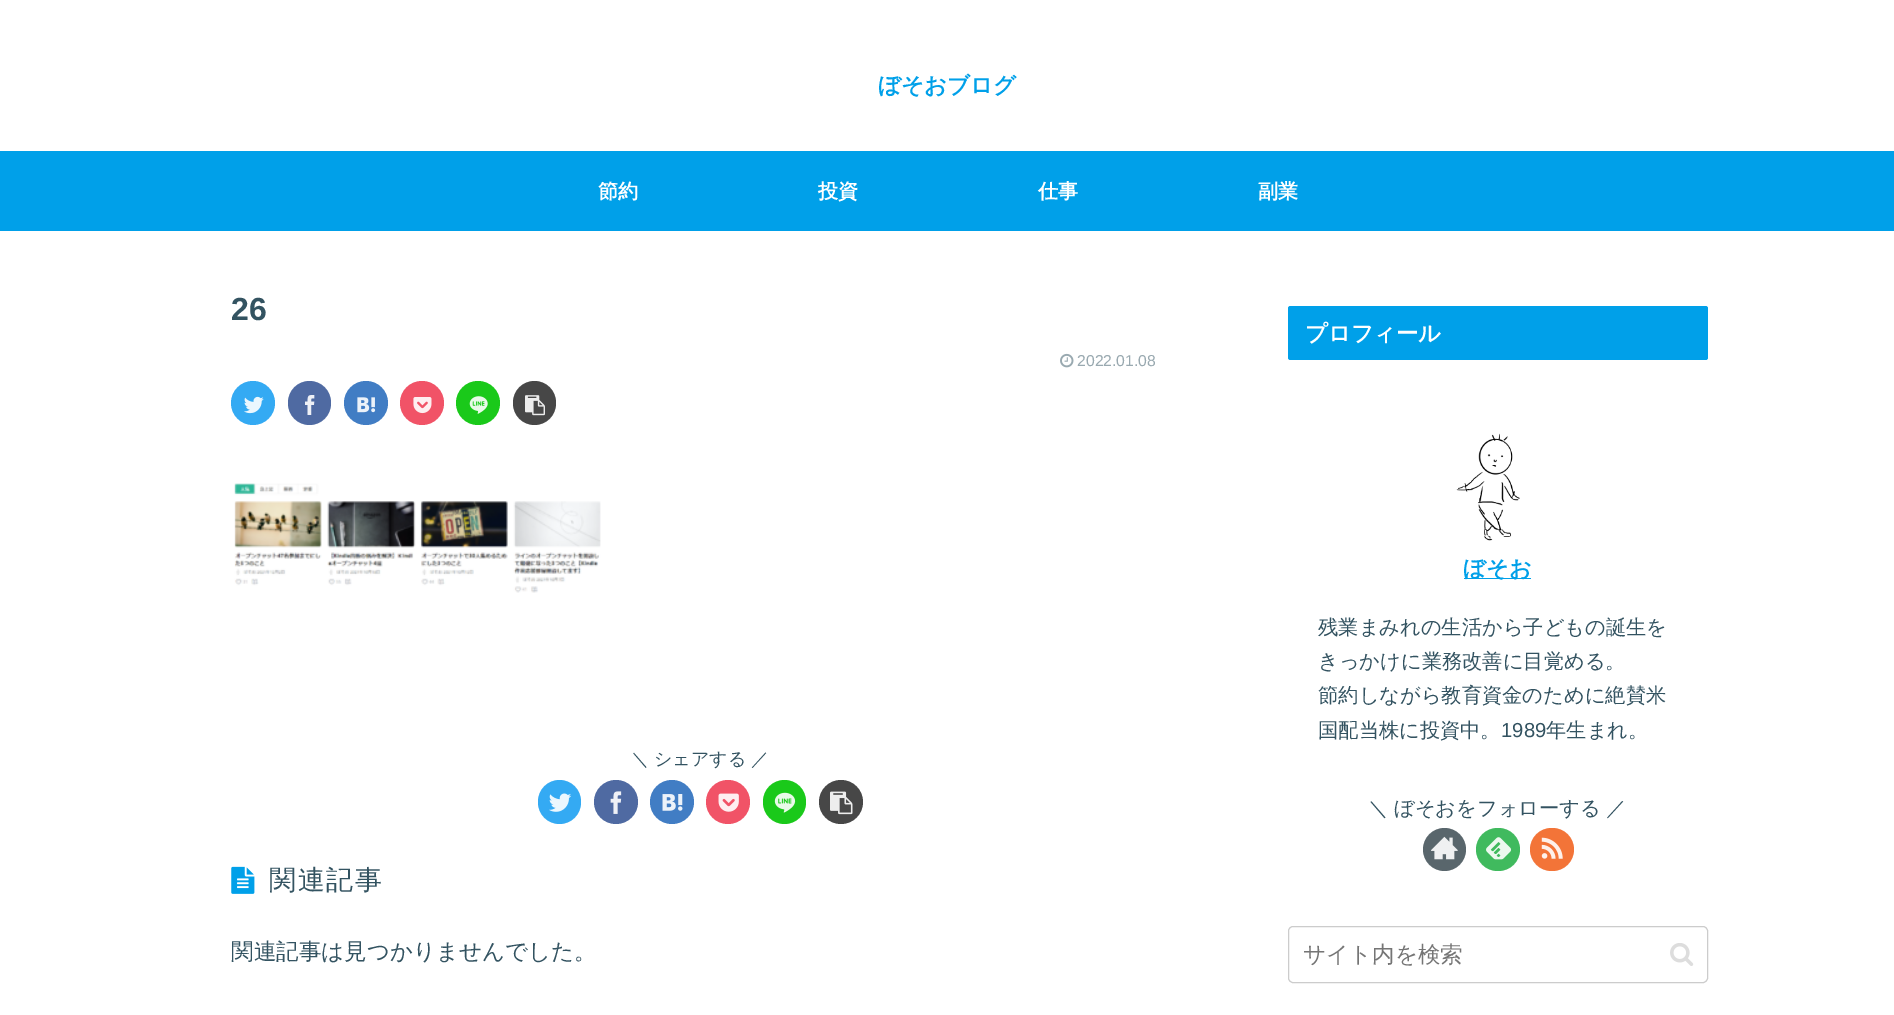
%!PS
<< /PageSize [1894 1015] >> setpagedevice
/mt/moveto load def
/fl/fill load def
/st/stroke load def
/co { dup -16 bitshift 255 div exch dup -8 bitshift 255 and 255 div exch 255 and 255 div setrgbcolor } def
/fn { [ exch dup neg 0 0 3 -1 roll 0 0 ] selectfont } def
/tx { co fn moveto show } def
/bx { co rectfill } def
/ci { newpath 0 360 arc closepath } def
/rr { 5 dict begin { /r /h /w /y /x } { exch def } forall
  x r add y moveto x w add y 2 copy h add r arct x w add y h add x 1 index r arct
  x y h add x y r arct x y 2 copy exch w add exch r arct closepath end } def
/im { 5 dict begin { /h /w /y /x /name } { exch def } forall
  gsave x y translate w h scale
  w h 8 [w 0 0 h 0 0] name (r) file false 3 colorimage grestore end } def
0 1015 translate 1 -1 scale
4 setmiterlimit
0 0 1894 1015 16#FFFFFF bx
0 151 1894 80 16#00A0E9 bx
(media/1.raw) 1060 353 14 15 im
16#34AAF3 co
253 403 22 ci fl
(media/2.raw) 244 396 20 18 im
16#4F6AA2 co
288 381 43 44 21.5 rr fl
(media/3.raw) 305 395 10 20 im
16#417DC4 co
366 403 22 ci fl
(media/4.raw) 357 397 19 16 im
16#F15367 co
422 403 22 ci fl
(media/5.raw) 413 397 19 17 im
16#1AC91A co
478 403 22 ci fl
(media/6.raw) 469 396 19 18 im
16#474747 co
513 381 43 44 21.5 rr fl
(media/7.raw) 525 395 20 21 im
(media/8.raw) 234 483 367 110 im
16#34AAF3 co
538 780 43 44 21.5 rr fl
(media/9.raw) 549 793 23 19 im
16#4F6AA2 co
616 802 22 ci fl
(media/10.raw) 610 791 12 23 im
16#417DC4 co
672 802 22 ci fl
(media/11.raw) 662 794 21 17 im
16#F15367 co
728 802 22 ci fl
(media/12.raw) 718 793 21 19 im
16#1AC91A co
763 780 43 44 21.5 rr fl
(media/13.raw) 774 792 22 21 im
16#474747 co
841 802 22 ci fl
(media/14.raw) 830 791 23 24 im
(media/15.raw) 231 866 24 28 im
16#00A0E9 co
1288 306 420 54 2.5 rr fl
(media/16.raw) 1456 433 64 108 im
1464 578 67 1 16#00A0E9 bx
16#59666C co
1444.5 849.5 21.5 ci fl
(media/17.raw) 1431 836 27 24 im
16#40BA5E co
1476 828 44 43 21.5 rr fl
(media/18.raw) 1486 837 25 23 im
16#F37438 co
1530 828 44 43 21.5 rr fl
(media/19.raw) 1541 837 22 22 im
16#CCCCCC co
1288.5 926.5 419 56 4.5 rr st
(media/20.raw) 1670 943 24 23 im
(ぼそおブログ) 878 93 /WenQuanYiZenHei-Bold 22.5 16#00A0E9 tx
(節約) 598 198 /WenQuanYiZenHei-Bold 20 16#FFFFFF tx
(投資) 818 198 /WenQuanYiZenHei-Bold 20 16#FFFFFF tx
(仕事) 1038 198 /WenQuanYiZenHei-Bold 20 16#FFFFFF tx
(副業) 1258 198 /WenQuanYiZenHei-Bold 20 16#FFFFFF tx
(26) 231 320 /LiberationSans-Bold 32 16#335361 tx
(2022.01.08) 1077 366 /LiberationSans-Regular 15.75 16#99A9B0 tx
(＼) 631 765 /WenQuanYiZenHei-Medium 18 16#335361 tx
(シェアする) 654 765 /WenQuanYiZenHei-Medium 18 16#335361 tx
(／) 751 765 /WenQuanYiZenHei-Medium 18 16#335361 tx
/WenQuanYiZenHei-Medium 27 fn
269 889 mt 1.5 0 (関連記事) ashow
(関連記事は見つかりませんでした。) 231 959 /WenQuanYiZenHei-Medium 22.5 16#335361 tx
(プロフィール) 1305 341 /WenQuanYiZenHei-Bold 22.25 16#FFFFFF tx
(ぼそお) 1463 576 /WenQuanYiZenHei-Bold 22.25 16#00A0E9 tx
(残業まみれの生活から子どもの誕生を) 1318 634 /WenQuanYiZenHei-Medium 20.25 16#335361 tx
(きっかけに業務改善に目覚める。) 1318 668 /WenQuanYiZenHei-Medium 20.25 16#335361 tx
(節約しながら教育資金のために絶賛米) 1318 702 /WenQuanYiZenHei-Medium 20.25 16#335361 tx
(国配当株に投資中。) 1318 737 /WenQuanYiZenHei-Medium 20.25 16#335361 tx
(1989) 1501 737 /LiberationSans-Regular 20.25 16#335361 tx
(年生まれ。) 1546 737 /WenQuanYiZenHei-Medium 20.25 16#335361 tx
(＼) 1368 815 /WenQuanYiZenHei-Medium 20.25 16#335361 tx
(ぼそおをフォローする) 1394 815 /WenQuanYiZenHei-Medium 20.25 16#335361 tx
(／) 1606 815 /WenQuanYiZenHei-Medium 20.25 16#335361 tx
(サイト内を検索) 1303 962 /WenQuanYiZenHei-Medium 22.5 16#757575 tx
showpage
